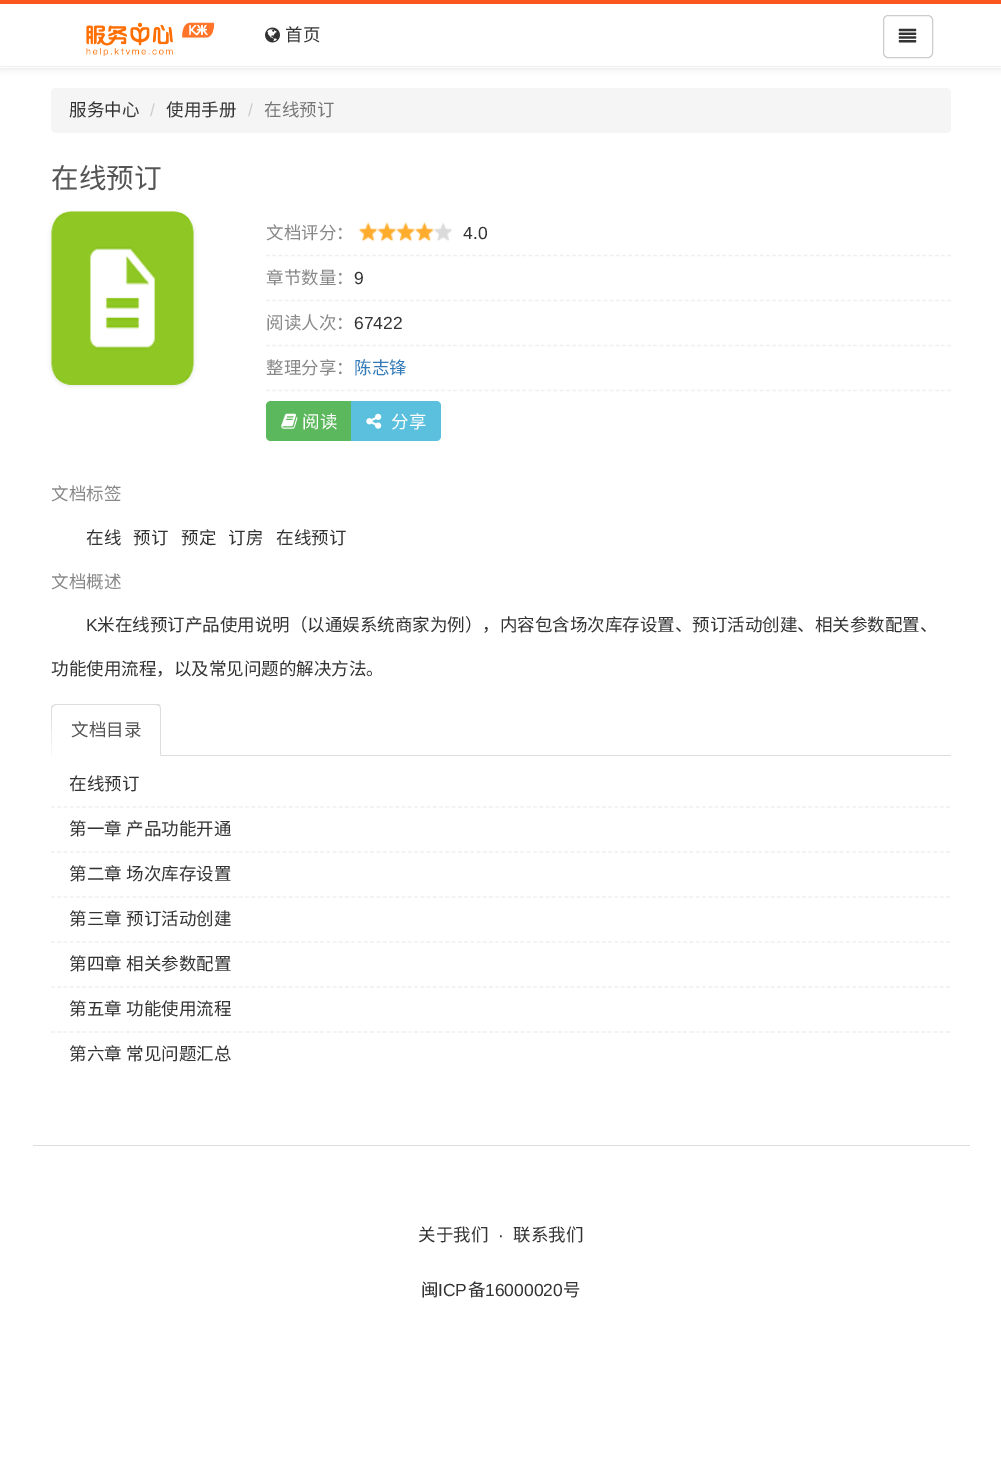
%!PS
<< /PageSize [1001 1466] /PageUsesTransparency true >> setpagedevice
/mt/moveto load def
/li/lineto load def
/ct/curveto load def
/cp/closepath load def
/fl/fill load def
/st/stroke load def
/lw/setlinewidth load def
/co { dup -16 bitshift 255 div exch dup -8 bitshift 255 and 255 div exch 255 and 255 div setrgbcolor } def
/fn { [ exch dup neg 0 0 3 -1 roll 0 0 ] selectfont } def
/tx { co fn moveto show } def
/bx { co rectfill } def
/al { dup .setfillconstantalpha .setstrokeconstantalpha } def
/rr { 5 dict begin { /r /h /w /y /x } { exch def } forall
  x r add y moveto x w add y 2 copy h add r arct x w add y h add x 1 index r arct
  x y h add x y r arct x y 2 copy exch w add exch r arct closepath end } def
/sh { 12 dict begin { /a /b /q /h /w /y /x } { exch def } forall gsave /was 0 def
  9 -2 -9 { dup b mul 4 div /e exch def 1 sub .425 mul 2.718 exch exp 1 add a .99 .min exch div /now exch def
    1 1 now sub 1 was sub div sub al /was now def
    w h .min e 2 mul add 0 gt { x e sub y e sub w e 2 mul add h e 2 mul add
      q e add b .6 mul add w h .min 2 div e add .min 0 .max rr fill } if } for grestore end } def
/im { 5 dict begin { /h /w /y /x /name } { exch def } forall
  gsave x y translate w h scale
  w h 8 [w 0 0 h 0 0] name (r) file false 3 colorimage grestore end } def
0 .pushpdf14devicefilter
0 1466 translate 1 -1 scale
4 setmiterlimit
0 0 1001 1466 16#FFFFFF bx
16#000000 co
0 1 1001 68 0 3 .1 sh
0 4 1001 64 16#FFFFFF bx
0 0 1001 4 16#FC561F bx
0 66 1001 1 16#EFEFEF bx
(media/1.raw) 86 22 129 35 im
(media/2.raw) 265 27 15 16 im
16#CCCCCC co
883.5 15.5 49 42 4.5 rr st
(media/3.raw) 898 28 19 15 im
16#F5F5F5 co
51 88 900 45 5 rr fl
16#000000 co
51 213 143 173 20 2 .1 sh
(media/4.raw) 51 211 143 174 im
16#EFEFEF co
1.2 lw
[3.75 2.5] 0 setdash
266 255.5 mt 951 255.5 li st
(media/5.raw) 358 222 94 20 im
266 300.5 mt 951 300.5 li st
266 345.5 mt 951 345.5 li st
266 390.5 mt 951 390.5 li st
16#5CB85C co
271 401 mt 353 401 li 353 441 li 271 441 li 268 441 266 439 266 436 ct 266 406 li 266 403 268 401 271 401 ct cp fl
(media/6.raw) 281 413 17 16 im
16#5BC0DE co
351 401 mt 436 401 li 439 401 441 403 441 406 ct 441 436 li 441 439 439 441 436 441 ct 351 441 li cp fl
(media/7.raw) 366 413 16 16 im
161 755 790 1 16#DDDDDD bx
56 704 mt 53 705 li 54 706 li 56 705 li 156 705 li 159 706 li 160 705 li 159 704 158 704 156 704 ct cp fl
161 756 mt 161 709 li 161 708 160 706 160 705 ct 159 706 li 160 707 160 708 160 709 ct 160 755 li cp fl
51 707 mt 53 705 li 54 706 li 52 708 li 52 755 li 52 756 li cp fl
16#EFEFEF co
[3.75 2.51] 0 setdash
51 807 mt 951 807 li st
51 852 mt 951 852 li st
51 897 mt 951 897 li st
51 942 mt 951 942 li st
51 987 mt 951 987 li st
51 1032 mt 951 1032 li st
33 1145 937 1 16#DDDDDD bx
(首页) 285 41 /NotoSansCJKSC-Regular 17.5 16#333333 tx
(服务中心) 69 116 /NotoSansCJKSC-Regular 17.5 16#333333 tx
(/) 150 116 /LiberationSans-Regular 17.5 16#CCCCCC tx
(使用手册) 166 116 /NotoSansCJKSC-Regular 17.5 16#333333 tx
(/) 248 116 /LiberationSans-Regular 17.5 16#CCCCCC tx
(在线预订) 264 116 /NotoSansCJKSC-Regular 17.5 16#777777 tx
(在线预订) 51 188 /NotoSansCJKSC-Regular 27.5 16#555555 tx
(文档评分：) 266 239 /NotoSansCJKSC-Regular 17.5 16#888888 tx
(4.0) 463 239 /LiberationSans-Regular 17.5 16#333333 tx
(章节数量：) 266 284 /NotoSansCJKSC-Regular 17.5 16#888888 tx
(9) 354 284 /LiberationSans-Regular 17.5 16#333333 tx
(阅读人次：) 266 329 /NotoSansCJKSC-Regular 17.5 16#888888 tx
(67422) 354 329 /LiberationSans-Regular 17.5 16#333333 tx
(整理分享：) 266 374 /NotoSansCJKSC-Regular 17.5 16#888888 tx
(陈志锋) 354 374 /NotoSansCJKSC-Regular 17.5 16#337AB7 tx
(阅读) 302 428 /NotoSansCJKSC-Regular 17.5 16#FFFFFF tx
(分享) 391 428 /NotoSansCJKSC-Regular 17.5 16#FFFFFF tx
(文档标签) 51 500 /NotoSansCJKSC-Regular 17.5 16#888888 tx
(在线) 86 544 /NotoSansCJKSC-Regular 17.5 16#333333 tx
(预订) 133 544 /NotoSansCJKSC-Regular 17.5 16#333333 tx
(预定) 181 544 /NotoSansCJKSC-Regular 17.5 16#333333 tx
(订房) 228 544 /NotoSansCJKSC-Regular 17.5 16#333333 tx
(在线预订) 276 544 /NotoSansCJKSC-Regular 17.5 16#333333 tx
(文档概述) 51 588 /NotoSansCJKSC-Regular 17.5 16#888888 tx
(K) 86 631 /LiberationSans-Regular 17.5 16#333333 tx
(米在线预订产品使用说明（以通娱系统商家为例），内容包含场次库存设置、预订活动创建、相关参数配置、) 97 631 /NotoSansCJKSC-Regular 17.5 16#333333 tx
(功能使用流程，以及常见问题的解决方法。) 51 675 /NotoSansCJKSC-Regular 17.5 16#333333 tx
(文档目录) 71 736 /NotoSansCJKSC-Regular 17.5 16#555555 tx
(在线预订) 69 790 /NotoSansCJKSC-Regular 17.5 16#333333 tx
69 835 mt 1 0 32 (第一章 产品功能开通) widthshow
69 880 mt 1 0 32 (第二章 场次库存设置) widthshow
69 925 mt 1 0 32 (第三章 预订活动创建) widthshow
69 970 mt 1 0 32 (第四章 相关参数配置) widthshow
69 1015 mt 1 0 32 (第五章 功能使用流程) widthshow
69 1060 mt 1 0 32 (第六章 常见问题汇总) widthshow
(关于我们) 418 1241 /NotoSansCJKSC-Regular 17.5 16#333333 tx
(·) 498 1241 /LiberationSans-Regular 17.5 16#333333 tx
(联系我们) 513 1241 /NotoSansCJKSC-Regular 17.5 16#333333 tx
(闽) 421 1296 /NotoSansCJKSC-Regular 17.5 16#333333 tx
(ICP) 438 1296 /LiberationSans-Regular 17.5 16#333333 tx
(备) 468 1296 /NotoSansCJKSC-Regular 17.5 16#333333 tx
(16000020) 485 1296 /LiberationSans-Regular 17.5 16#333333 tx
(号) 563 1296 /NotoSansCJKSC-Regular 17.5 16#333333 tx
.poppdf14devicefilter showpage
